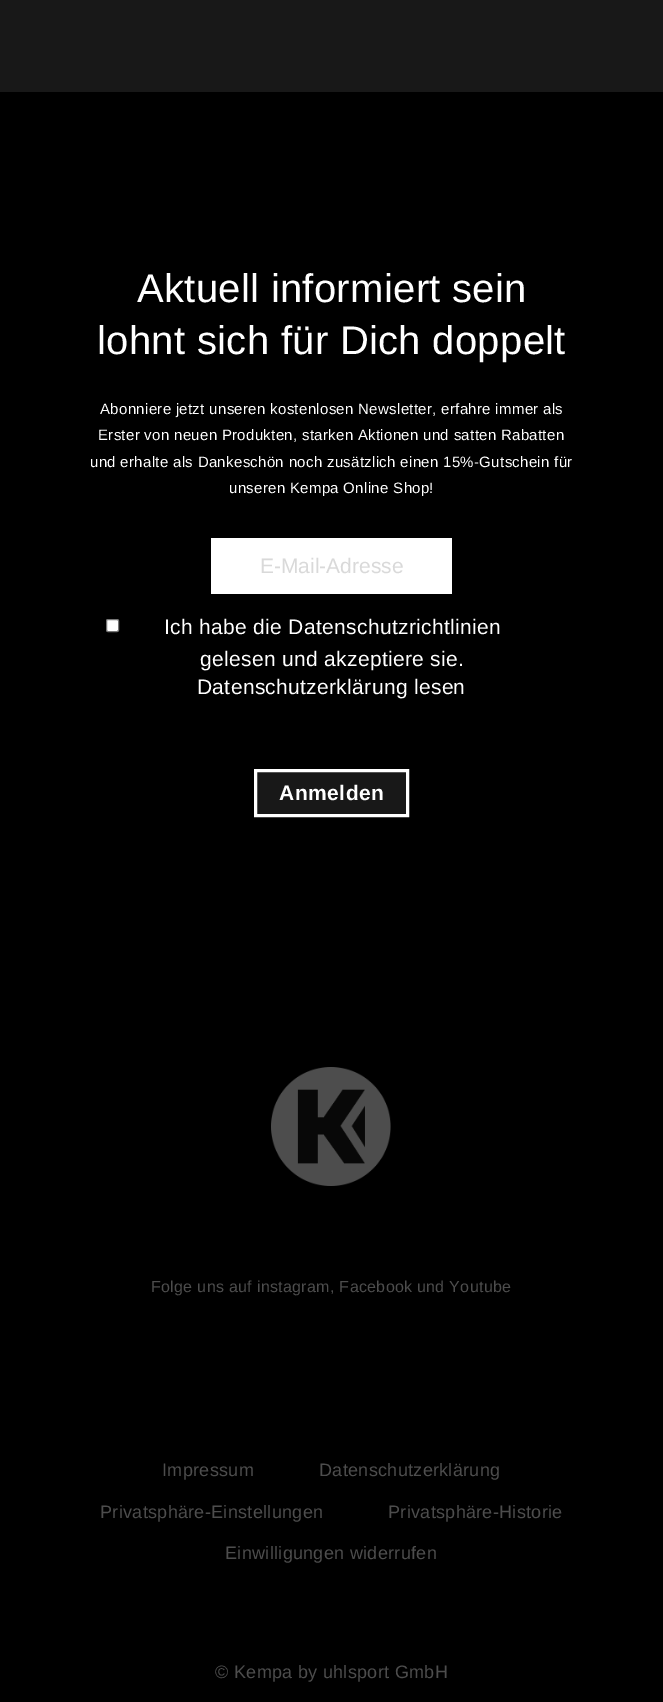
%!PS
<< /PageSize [663 1702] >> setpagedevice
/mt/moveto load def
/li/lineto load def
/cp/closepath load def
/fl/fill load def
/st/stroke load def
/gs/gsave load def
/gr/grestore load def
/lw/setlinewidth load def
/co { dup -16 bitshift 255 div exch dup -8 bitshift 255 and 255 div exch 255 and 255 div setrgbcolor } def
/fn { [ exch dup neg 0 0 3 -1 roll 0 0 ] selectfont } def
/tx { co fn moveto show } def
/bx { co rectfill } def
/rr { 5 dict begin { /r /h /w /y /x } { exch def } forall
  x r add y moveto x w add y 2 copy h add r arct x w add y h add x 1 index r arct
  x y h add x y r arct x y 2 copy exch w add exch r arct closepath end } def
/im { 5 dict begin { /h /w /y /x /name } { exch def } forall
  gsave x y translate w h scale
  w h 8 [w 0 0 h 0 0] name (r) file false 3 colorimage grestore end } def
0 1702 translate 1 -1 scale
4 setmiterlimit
0 0 663 1702 16#000000 bx
0 0 663 92 16#181818 bx
211 538 241 56 16#FFFFFF bx
106.5 619.5 12 12 1.5 rr gs fl gr
16#767676 co
st
16#181818 co
255.5 770.5 mt 407.5 770.5 li 407.5 815.5 li 255.5 815.5 li cp gs fl gr
16#FFFFFF co
3 lw
st
(media/1.raw) 271 1067 120 119 im
/LiberationSans-Regular 40 fn
137 302 mt .32 0 (Aktuell informiert sein) ashow
97 354 mt .32 0 (lohnt sich für Dich doppelt) ashow
/LiberationSans-Regular 15 fn
100 414 mt .32 0 (Abonniere jetzt unseren kostenlosen Newsletter, erfahre immer als) ashow
98 440 mt .32 0 (Erster von neuen Produkten, starken Aktionen und satten Rabatten) ashow
90 467 mt .32 0 (und erhalte als Dankeschön noch zusätzlich einen 15%-Gutschein für) ashow
229 493 mt .32 0 (unseren Kempa Online Shop!) ashow
(E-Mail-Adresse) 260 573 /LiberationSans-Regular 21 16#D9D9D9 tx
16#FFFFFF co
164 634 mt .32 0 (Ich habe die Datenschutzrichtlinien) ashow
200 666 mt .32 0 (gelesen und akzeptiere sie.) ashow
197 694 mt .32 0 (Datenschutzerklärung lesen) ashow
/LiberationSans-Bold 21 fn
279 800 mt .5 0 (Anmelden) ashow
/LiberationSans-Regular 16 fn
16#4D4D4D co
151 1292 mt .32 0 (Folge uns auf instagram, Facebook und Youtube) ashow
/LiberationSans-Regular 18 fn
162 1476 mt .32 0 (Impressum) ashow
319 1476 mt .32 0 (Datenschutzerklärung) ashow
100 1518 mt .32 0 (Privatsphäre-Einstellungen) ashow
388 1518 mt .32 0 (Privatsphäre-Historie) ashow
225 1559 mt .32 0 (Einwilligungen widerrufen) ashow
215 1678 mt .32 0 (© Kempa by uhlsport GmbH) ashow
showpage
